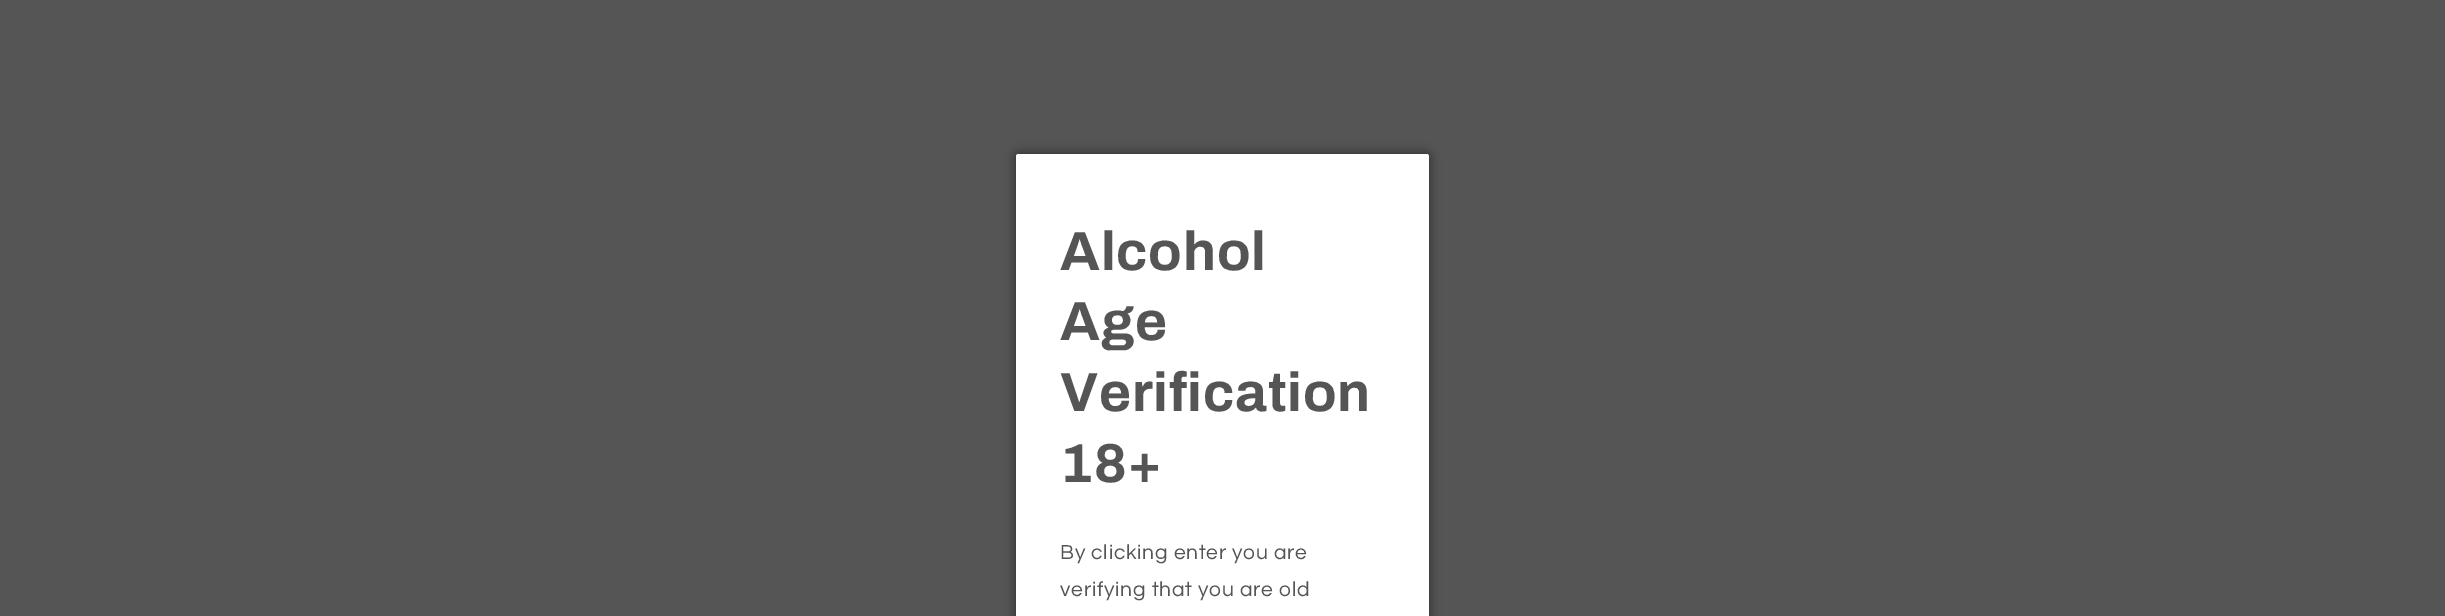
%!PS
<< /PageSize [2445 616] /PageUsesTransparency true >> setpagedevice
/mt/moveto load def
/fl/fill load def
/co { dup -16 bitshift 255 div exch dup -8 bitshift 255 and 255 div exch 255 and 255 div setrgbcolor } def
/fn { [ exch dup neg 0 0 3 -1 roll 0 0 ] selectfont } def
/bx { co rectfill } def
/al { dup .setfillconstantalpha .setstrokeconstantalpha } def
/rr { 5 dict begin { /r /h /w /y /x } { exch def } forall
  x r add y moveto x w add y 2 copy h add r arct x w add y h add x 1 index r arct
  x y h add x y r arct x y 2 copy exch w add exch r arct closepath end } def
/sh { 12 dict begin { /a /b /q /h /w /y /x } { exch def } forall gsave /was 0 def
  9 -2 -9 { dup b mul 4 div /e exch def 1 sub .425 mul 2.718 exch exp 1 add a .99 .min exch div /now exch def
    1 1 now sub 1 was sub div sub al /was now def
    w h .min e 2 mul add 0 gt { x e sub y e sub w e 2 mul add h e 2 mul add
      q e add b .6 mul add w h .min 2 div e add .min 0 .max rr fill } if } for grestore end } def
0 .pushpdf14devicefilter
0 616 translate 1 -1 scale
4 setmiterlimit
0 0 2445 616 16#555555 bx
16#000000 co
1016 154 413 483 2.5 6 .5 sh
16#FFFFFF co
1016 154 413 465 2.5 rr fl
/Archivo-Bold 55 fn
16#555555 co
1060 270 mt .75 0 (Alcohol) ashow
1060 340 mt .75 0 (Age) ashow
1060 411 mt .75 0 (Verification) ashow
1060 482 mt .75 0 (18+) ashow
/Questrial-Regular 21 fn
1060 559 mt .8 0 (By clicking enter you are) ashow
1060 596 mt .8 0 (verifying that you are old) ashow
.poppdf14devicefilter showpage
